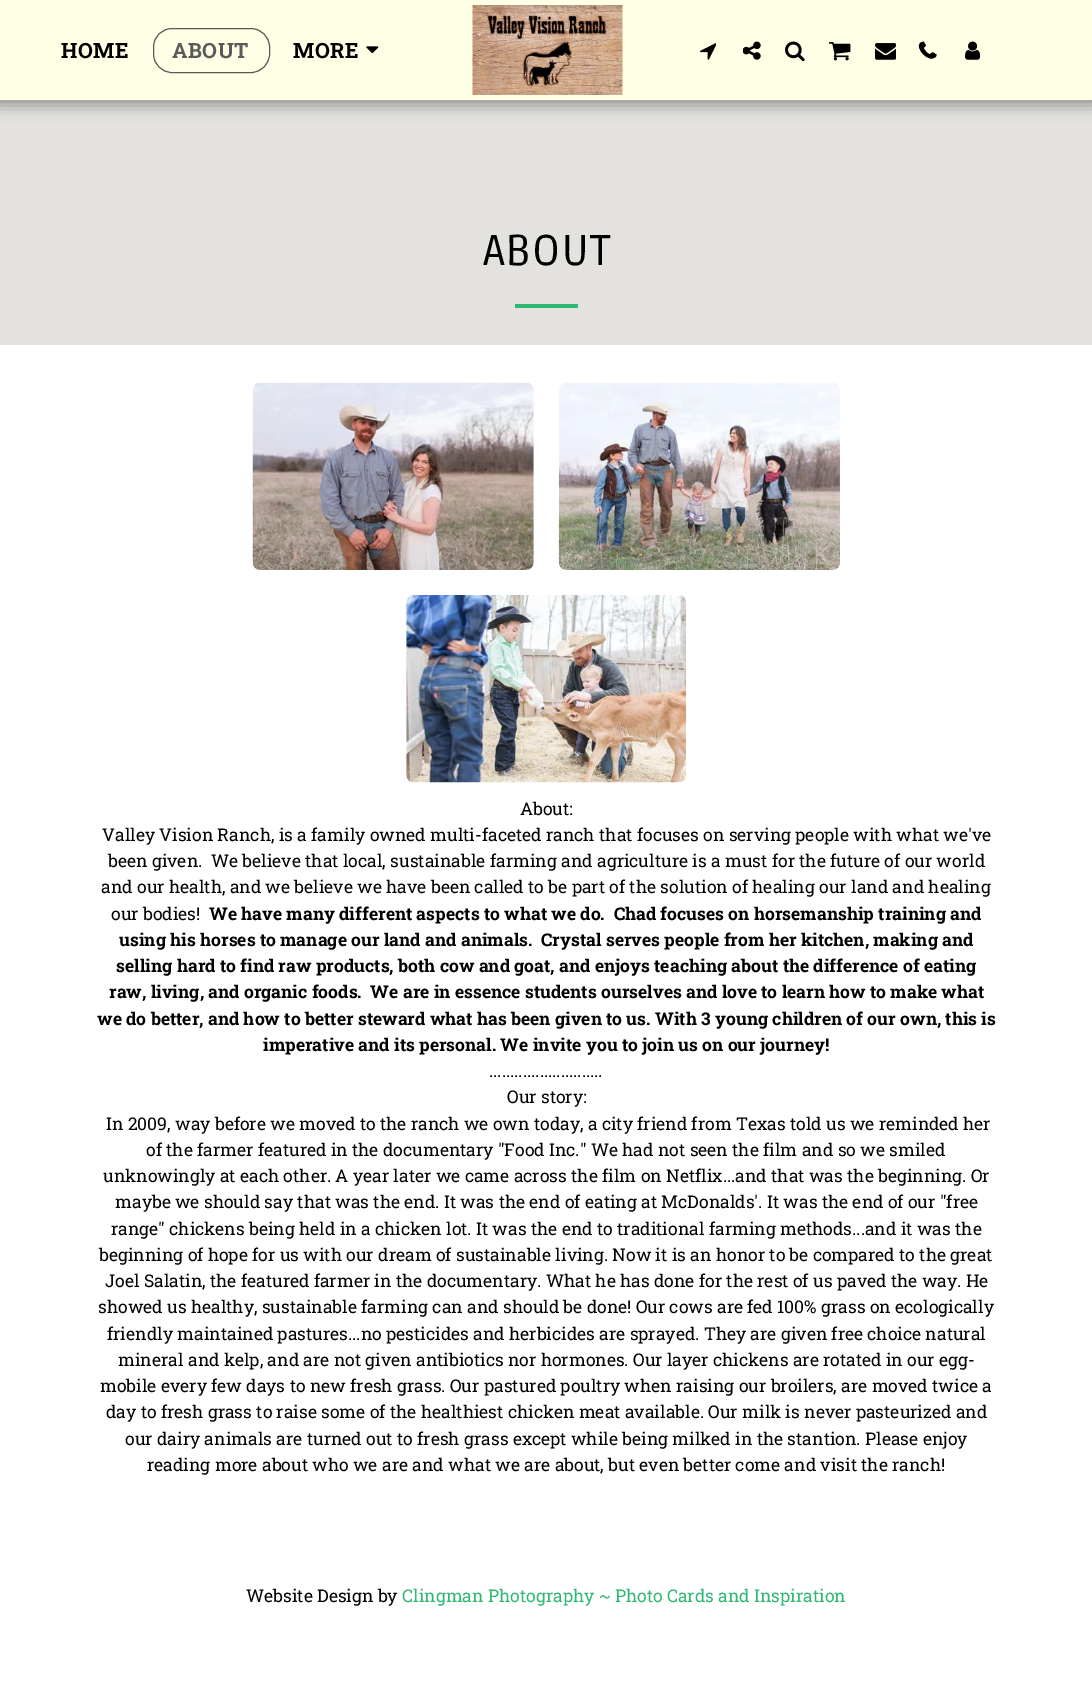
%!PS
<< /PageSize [1092 1694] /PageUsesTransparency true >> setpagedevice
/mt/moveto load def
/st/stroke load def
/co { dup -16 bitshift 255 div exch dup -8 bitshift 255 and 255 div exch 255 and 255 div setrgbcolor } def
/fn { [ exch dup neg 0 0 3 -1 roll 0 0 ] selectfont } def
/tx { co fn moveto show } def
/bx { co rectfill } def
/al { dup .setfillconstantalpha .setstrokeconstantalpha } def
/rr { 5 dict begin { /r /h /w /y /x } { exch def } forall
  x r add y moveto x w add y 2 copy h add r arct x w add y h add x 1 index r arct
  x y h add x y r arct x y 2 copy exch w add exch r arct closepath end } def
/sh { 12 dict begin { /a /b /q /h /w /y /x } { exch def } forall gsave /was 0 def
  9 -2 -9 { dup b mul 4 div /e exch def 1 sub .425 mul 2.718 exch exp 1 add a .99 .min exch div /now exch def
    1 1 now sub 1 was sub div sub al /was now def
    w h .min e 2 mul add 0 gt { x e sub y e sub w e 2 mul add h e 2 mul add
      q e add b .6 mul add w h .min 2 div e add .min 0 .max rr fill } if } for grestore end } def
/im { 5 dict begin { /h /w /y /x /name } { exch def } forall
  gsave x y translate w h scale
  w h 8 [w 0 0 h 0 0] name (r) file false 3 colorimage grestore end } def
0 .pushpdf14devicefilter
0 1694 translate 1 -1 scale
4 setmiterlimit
0 0 1092 1694 16#FFFFFF bx
0 100 1092 245 16#E3E2DE bx
16#000000 co
-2 0 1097 105 0 7.5 .35 sh
0 0 1092 100 16#FEFFE4 bx
16#5A5A5A co
153.5 28.5 116 44 18.5 rr st
(media/1.raw) 366 46 13 8 im
(media/2.raw) 472 5 151 90 im
(media/3.raw) 700 43 16 17 im
(media/4.raw) 743 41 18 19 im
(media/5.raw) 785 41 20 20 im
(media/6.raw) 829 42 22 19 im
(media/7.raw) 875 43 21 17 im
(media/8.raw) 920 41 17 18 im
(media/9.raw) 918 42 17 17 im
(media/10.raw) 965 41 15 19 im
515 304 63 4 16#2EB872 bx
(media/11.raw) 252 382 282 188 im
(media/12.raw) 558 382 282 188 im
(media/13.raw) 406 595 281 188 im
/RobotoSlab-Bold 21 fn
16#000000 co
61 58 mt .5 0 (HOME) ashow
16#5A5A5A co
172 58 mt .5 0 (ABOUT) ashow
16#000000 co
293 58 mt .5 0 (MORE) ashow
/Ruda-Regular 43 fn
483 265 mt .5 0 (ABOUT) ashow
(About:) 520 815 /RobotoSlab-Regular 17.5 16#000000 tx
(Valley Vision Ranch, is a family owned multi-faceted ranch that focuses on serving people with what we've) 102 841 /RobotoSlab-Regular 17.5 16#000000 tx
(been given.  We believe that local, sustainable farming and agriculture is a must for the future of our world) 108 867 /RobotoSlab-Regular 17.5 16#000000 tx
(and our health, and we believe we have been called to be part of the solution of healing our land and healing) 101 893 /RobotoSlab-Regular 17.5 16#000000 tx
(our bodies!) 111 920 /RobotoSlab-Regular 17.5 16#000000 tx
(We have many different aspects to what we do.  Chad focuses on horsemanship training and) 209 920 /RobotoSlab-Bold 17.5 16#000000 tx
(using his horses to manage our land and animals.  Crystal serves people from her kitchen, making and) 119 946 /RobotoSlab-Bold 17.5 16#000000 tx
(selling hard to find raw products, both cow and goat, and enjoys teaching about the difference of eating) 116 972 /RobotoSlab-Bold 17.5 16#000000 tx
(raw, living, and organic foods.  We are in essence students ourselves and love to learn how to make what) 109 998 /RobotoSlab-Bold 17.5 16#000000 tx
(we do better, and how to better steward what has been given to us. With 3 young children of our own, this is) 97 1025 /RobotoSlab-Bold 17.5 16#000000 tx
(imperative and its personal. We invite you to join us on our journey!) 263 1051 /RobotoSlab-Bold 17.5 16#000000 tx
(...........................) 489 1077 /RobotoSlab-Regular 17.5 16#000000 tx
(Our story:) 507 1103 /RobotoSlab-Regular 17.5 16#000000 tx
(In 2009, way before we moved to the ranch we own today, a city friend from Texas told us we reminded her) 106 1130 /RobotoSlab-Regular 17.5 16#000000 tx
(of the farmer featured in the documentary "Food Inc." We had not seen the film and so we smiled) 146 1156 /RobotoSlab-Regular 17.5 16#000000 tx
(unknowingly at each other. A year later we came across the film on Netflix...and that was the beginning. Or) 103 1182 /RobotoSlab-Regular 17.5 16#000000 tx
(maybe we should say that was the end. It was the end of eating at McDonalds'. It was the end of our "free) 115 1208 /RobotoSlab-Regular 17.5 16#000000 tx
(range" chickens being held in a chicken lot. It was the end to traditional farming methods...and it was the) 111 1235 /RobotoSlab-Regular 17.5 16#000000 tx
(beginning of hope for us with our dream of sustainable living. Now it is an honor to be compared to the great) 99 1261 /RobotoSlab-Regular 17.5 16#000000 tx
(Joel Salatin, the featured farmer in the documentary. What he has done for the rest of us paved the way. He) 105 1287 /RobotoSlab-Regular 17.5 16#000000 tx
(showed us healthy, sustainable farming can and should be done! Our cows are fed 100% grass on ecologically) 98 1313 /RobotoSlab-Regular 17.5 16#000000 tx
(friendly maintained pastures...no pesticides and herbicides are sprayed. They are given free choice natural) 107 1340 /RobotoSlab-Regular 17.5 16#000000 tx
(mineral and kelp, and are not given antibiotics nor hormones. Our layer chickens are rotated in our egg-) 118 1366 /RobotoSlab-Regular 17.5 16#000000 tx
(mobile every few days to new fresh grass. Our pastured poultry when raising our broilers, are moved twice a) 100 1392 /RobotoSlab-Regular 17.5 16#000000 tx
(day to fresh grass to raise some of the healthiest chicken meat available. Our milk is never pasteurized and) 106 1418 /RobotoSlab-Regular 17.5 16#000000 tx
(our dairy animals are turned out to fresh grass except while being milked in the stantion. Please enjoy) 125 1445 /RobotoSlab-Regular 17.5 16#000000 tx
(reading more about who we are and what we are about, but even better come and visit the ranch!) 147 1471 /RobotoSlab-Regular 17.5 16#000000 tx
(Website Design by) 246 1602 /RobotoSlab-Regular 17.5 16#000000 tx
(Clingman Photography ~ Photo Cards and Inspiration) 402 1602 /RobotoSlab-Regular 17.5 16#2EB872 tx
.poppdf14devicefilter showpage
